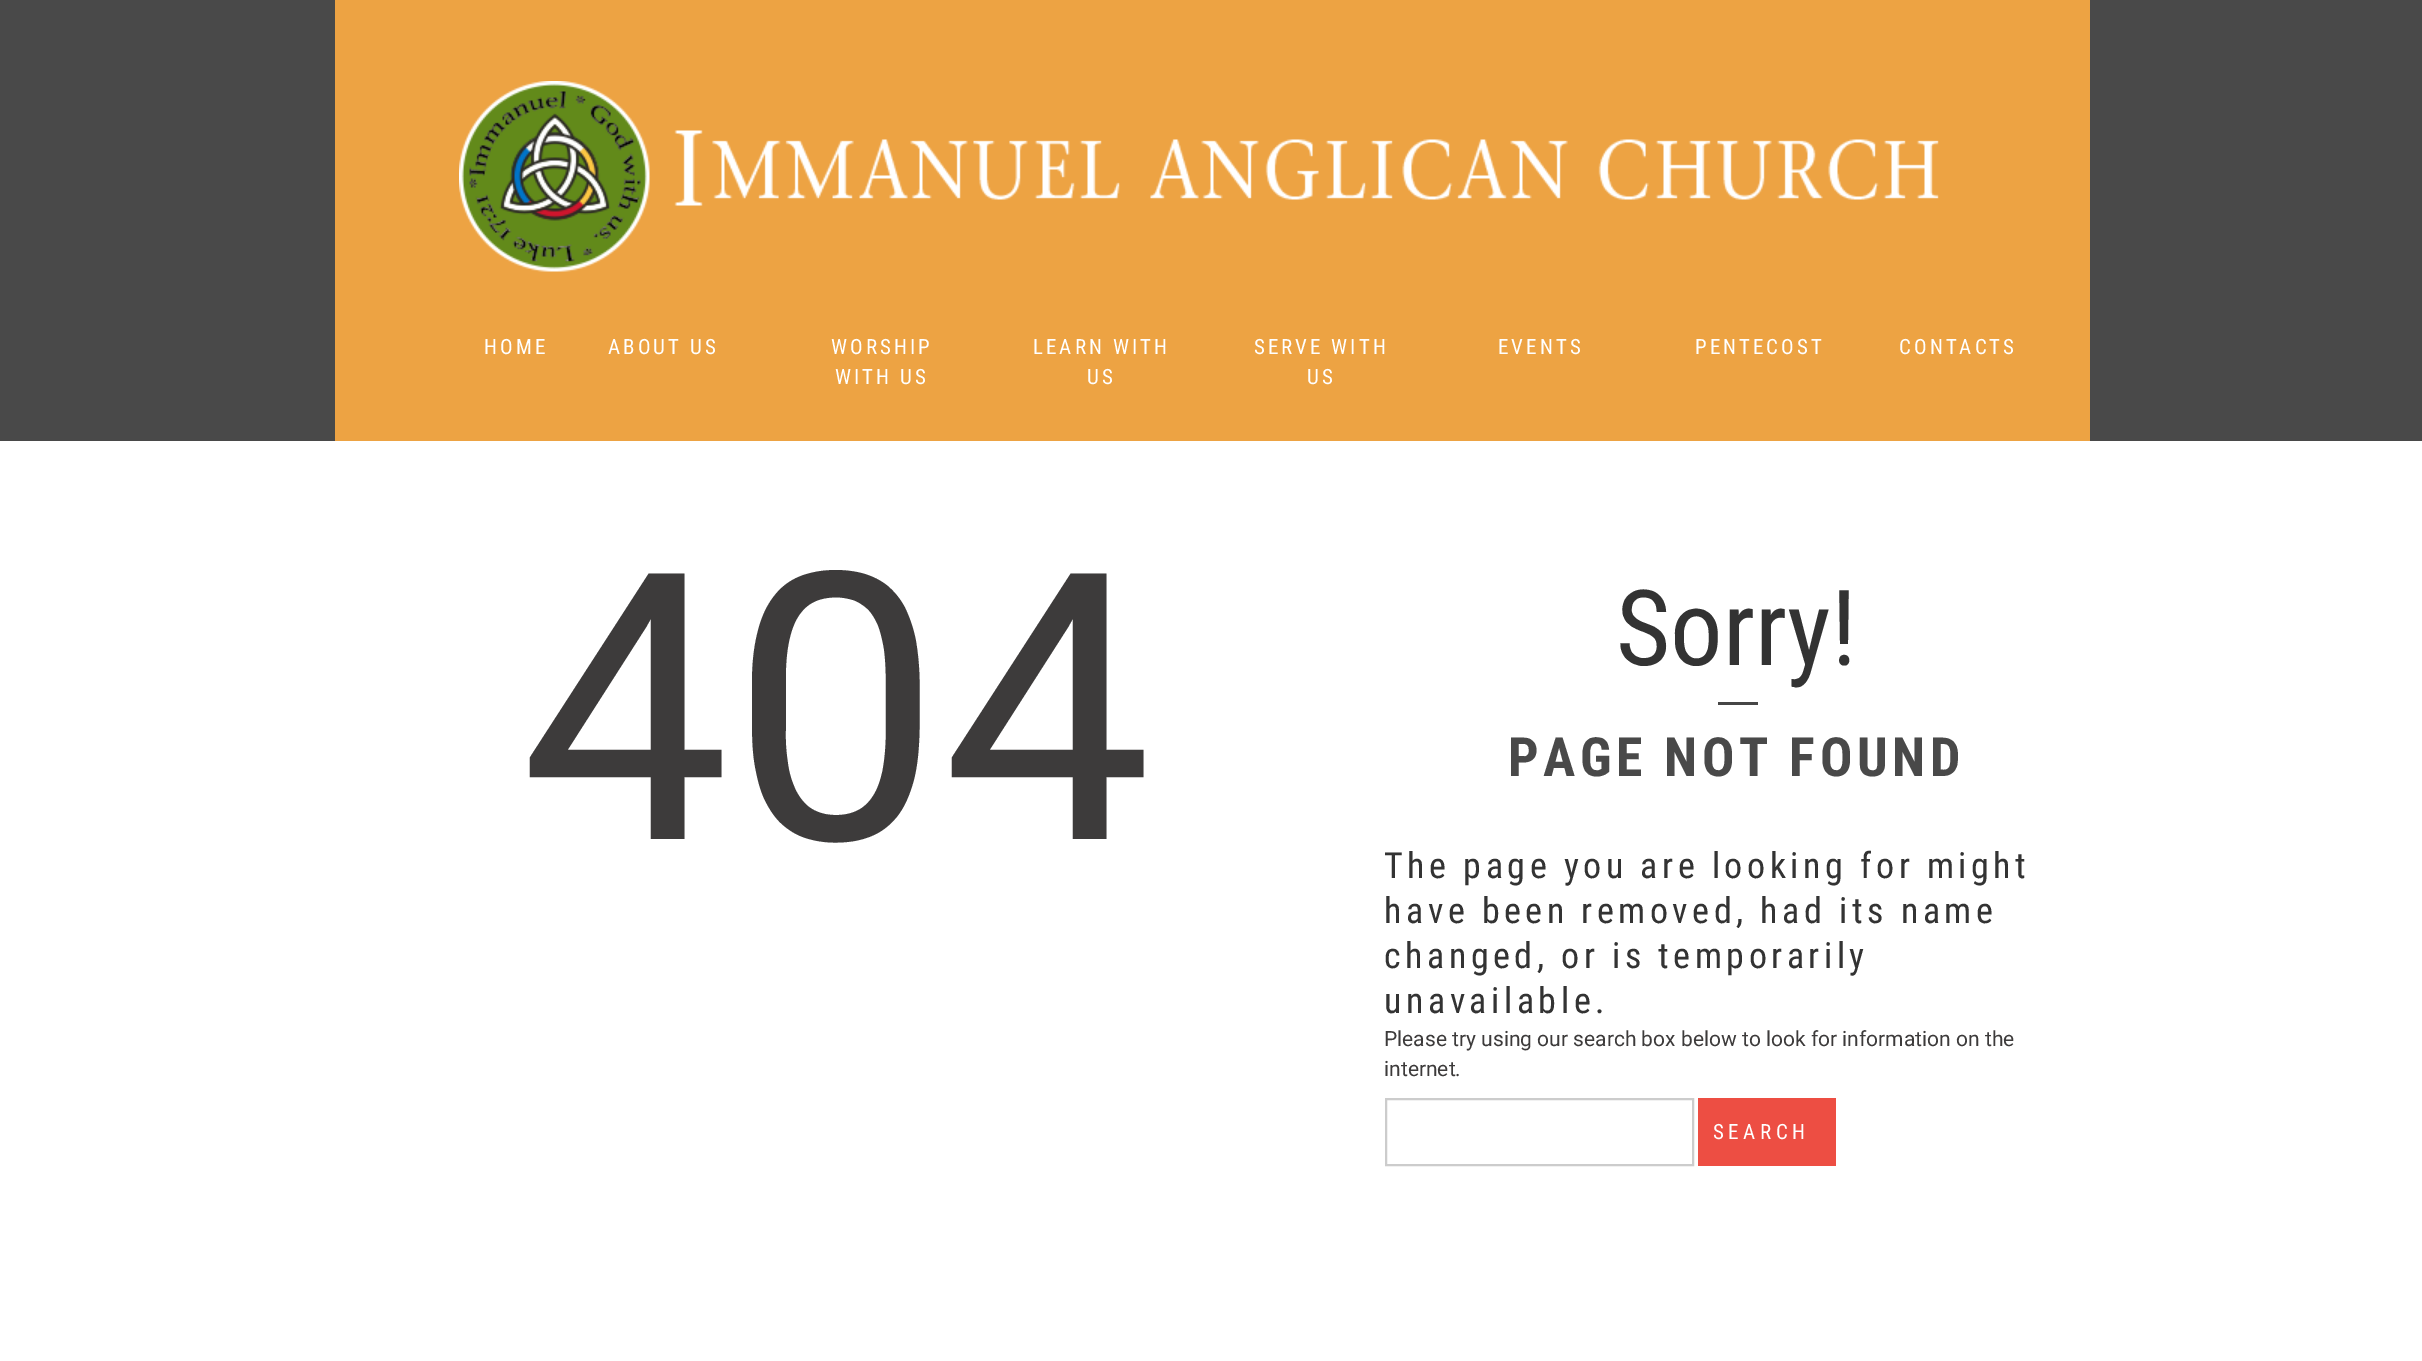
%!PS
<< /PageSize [2422 1361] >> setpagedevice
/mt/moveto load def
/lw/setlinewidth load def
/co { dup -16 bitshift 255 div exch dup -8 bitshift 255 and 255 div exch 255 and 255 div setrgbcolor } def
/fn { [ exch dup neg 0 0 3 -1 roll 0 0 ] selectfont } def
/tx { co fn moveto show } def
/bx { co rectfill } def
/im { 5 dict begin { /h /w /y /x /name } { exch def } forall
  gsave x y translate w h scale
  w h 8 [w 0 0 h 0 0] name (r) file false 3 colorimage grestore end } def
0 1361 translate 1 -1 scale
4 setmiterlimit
0 0 2422 1361 16#FFFFFF bx
0 0 2422 441 16#494949 bx
335 0 1755 441 16#EDA343 bx
(media/1.raw) 459 81 1480 191 im
1718 702 40 3 16#464646 bx
16#CCCCCC co
2 lw
1386 1099 307 66 rectstroke
1698 1098 138 68 16#ED4E43 bx
/RobotoCondensed-Regular 21 fn
16#FFFFFF co
484 354 mt 3 0 (HOME) ashow
608 354 mt 3 0 (ABOUT US) ashow
831 354 mt 3 0 (WORSHIP) ashow
835 384 mt 3 0 (WITH US) ashow
1033 354 mt 3 0 (LEARN WITH) ashow
1087 384 mt 3 0 (US) ashow
1254 354 mt 3 0 (SERVE WITH) ashow
1307 384 mt 3 0 (US) ashow
1498 354 mt 3 0 (EVENTS) ashow
1695 354 mt 3 0 (PENTECOST) ashow
1899 354 mt 3 0 (CONTACTS) ashow
(404) 520 839 /Roboto-Regular 375 16#3D3B3B tx
(Sorry!) 1616 665 /RobotoCondensed-Regular 105 16#333333 tx
/RobotoCondensed-Bold 54 fn
16#494949 co
1508 776 mt 4.5 0 (PAGE NOT FOUND) ashow
/RobotoCondensed-Regular 36 fn
16#333333 co
1384 878 mt 4.5 0 (The page you are looking for might) ashow
1384 923 mt 4.5 0 (have been removed, had its name) ashow
1384 968 mt 4.5 0 (changed, or is temporarily) ashow
1384 1013 mt 4.5 0 (unavailable.) ashow
(Please try using our search box below to look for information on the) 1384 1046 /Roboto-Regular 21 16#3D3B3B tx
(internet.) 1384 1076 /Roboto-Regular 21 16#3D3B3B tx
/RobotoCondensed-Regular 21 fn
16#FFFFFF co
1713 1139 mt 4.5 0 (SEARCH) ashow
showpage
